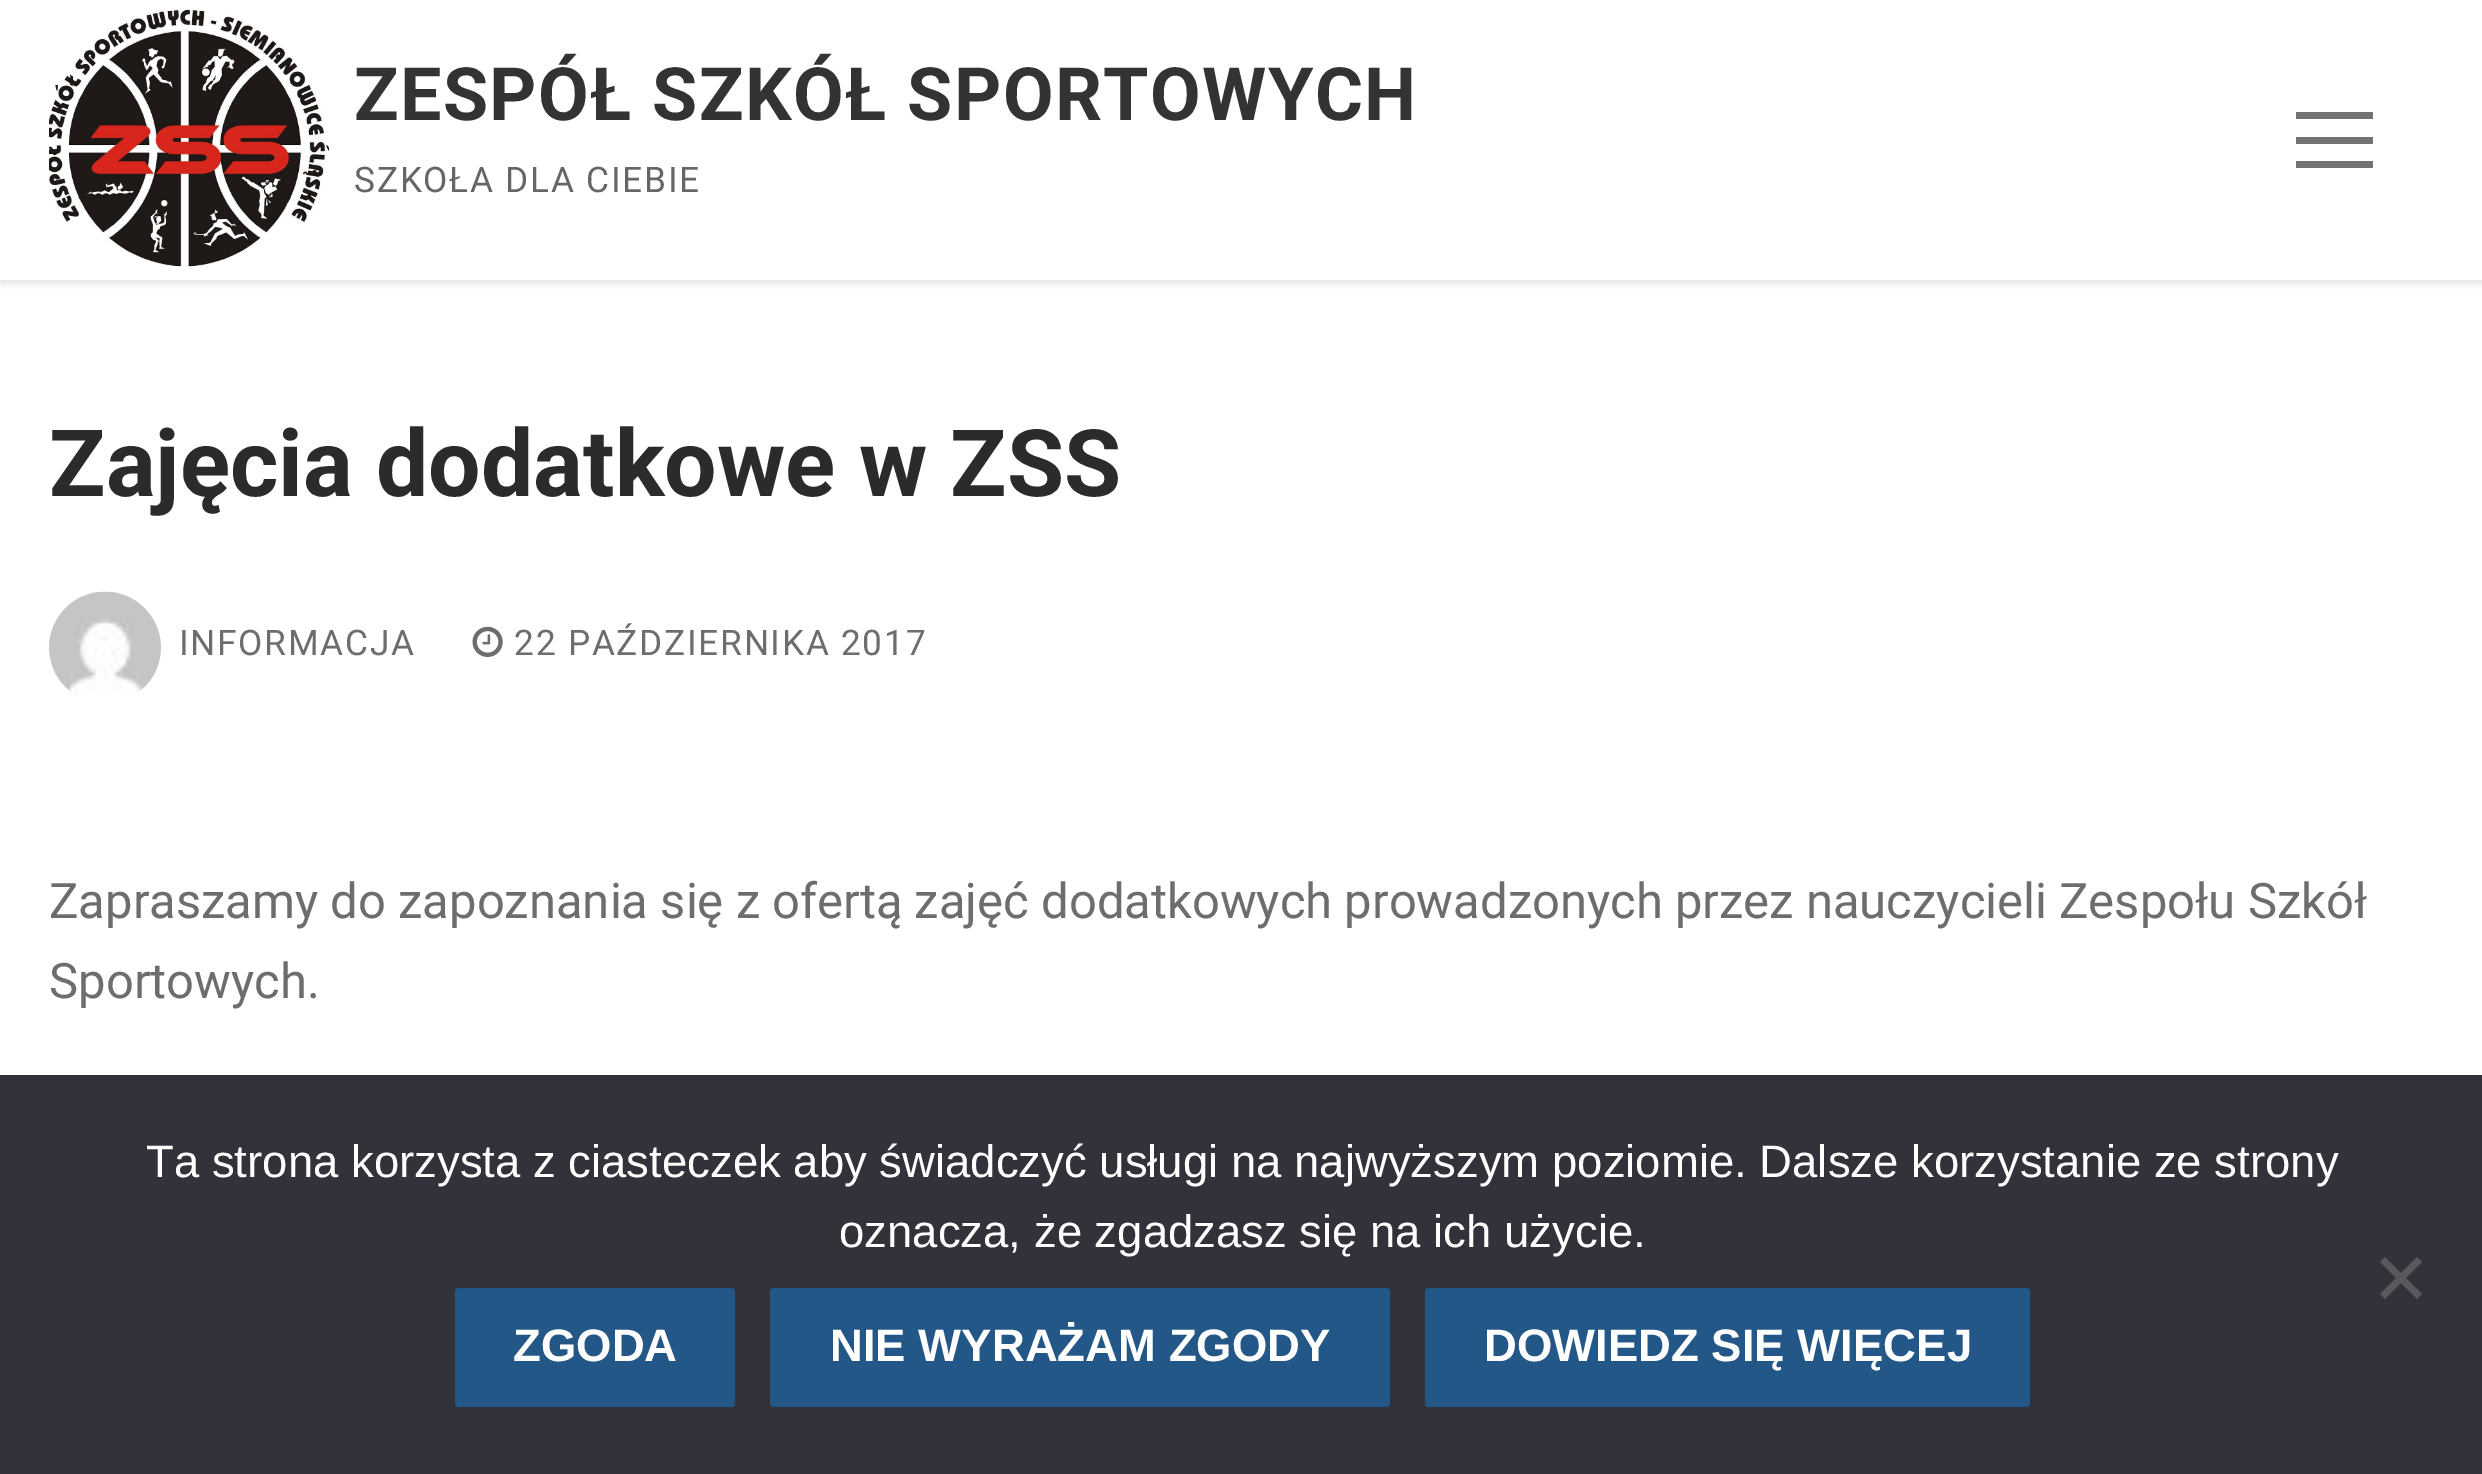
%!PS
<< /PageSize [2482 1474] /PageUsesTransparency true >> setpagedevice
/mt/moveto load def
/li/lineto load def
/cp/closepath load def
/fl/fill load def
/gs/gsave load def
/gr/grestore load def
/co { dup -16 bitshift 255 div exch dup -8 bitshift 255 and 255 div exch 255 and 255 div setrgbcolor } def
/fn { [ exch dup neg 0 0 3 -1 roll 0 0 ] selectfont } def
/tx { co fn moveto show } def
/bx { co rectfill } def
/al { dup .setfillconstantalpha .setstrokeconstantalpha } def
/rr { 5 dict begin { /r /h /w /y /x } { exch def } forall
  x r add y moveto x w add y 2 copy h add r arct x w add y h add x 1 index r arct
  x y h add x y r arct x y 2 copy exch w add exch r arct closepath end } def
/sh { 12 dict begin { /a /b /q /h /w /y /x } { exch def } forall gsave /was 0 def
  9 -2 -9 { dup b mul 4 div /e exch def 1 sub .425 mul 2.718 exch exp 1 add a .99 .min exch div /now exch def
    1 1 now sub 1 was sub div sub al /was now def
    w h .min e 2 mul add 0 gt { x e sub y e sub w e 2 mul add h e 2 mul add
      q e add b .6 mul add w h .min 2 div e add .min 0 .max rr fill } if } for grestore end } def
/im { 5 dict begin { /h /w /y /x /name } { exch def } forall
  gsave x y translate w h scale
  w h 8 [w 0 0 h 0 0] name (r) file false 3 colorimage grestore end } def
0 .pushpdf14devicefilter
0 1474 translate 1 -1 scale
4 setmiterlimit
0 0 2482 1474 16#FFFFFF bx
gs
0 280 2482 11 rectclip
16#E1E5EA co
0 4 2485 280 0 3.5 1 sh
gr
(media/1.raw) 49 9 280 258 im
2296 137 77 7 16#737373 bx
2296 112 77 7 16#737373 bx
2296 161 77 7 16#737373 bx
(media/2.raw) 49 591 112 104 im
(media/3.raw) 472 626 31 31 im
0 1075 2482 399 16#32323A bx
16#59595D co
2417 1257 mt 2422 1262 li 2385 1299 li 2380 1294 li cp fl
2380 1262 mt 2385 1257 li 2422 1294 li 2417 1299 li cp fl
16#235787 co
455 1288 280 119 4 rr fl
770 1288 620 119 4 rr fl
1425 1288 605 119 4 rr fl
/Roboto-Bold 73.5 fn
16#333333 co
354 120 mt 1.4 0 (ZESPÓŁ SZKÓŁ SPORTOWYCH) ashow
/Roboto-Regular 35.25 fn
16#666666 co
354 192 mt 1.75 0 (SZKOŁA DLA CIEBIE) ashow
(Zajęcia dodatkowe w ZSS) 49 496 /Roboto-Bold 93.1 16#2B2B2B tx
/Roboto-Regular 35.25 fn
16#6D6D6D co
179 655 mt 1.75 0 (INFORMACJA) ashow
514 655 mt 1.75 0 (22 PAŹDZIERNIKA 2017) ashow
(Zapraszamy do zapoznania się z ofertą zajęć dodatkowych prowadzonych przez nauczycieli Zespołu Szkół) 49 918 /Roboto-Regular 49 16#6D6D6D tx
(Sportowych.) 49 998 /Roboto-Regular 49 16#6D6D6D tx
(Ta strona korzysta z ciasteczek aby świadczyć usługi na najwyższym poziomie. Dalsze korzystanie ze strony) 146 1177 /LiberationSans-Regular 45.5 16#FFFFFF tx
(oznacza, że zgadzasz się na ich użycie.) 839 1247 /LiberationSans-Regular 45.5 16#FFFFFF tx
(ZGODA) 513 1361 /LiberationSans-Bold 45.5 16#FFFFFF tx
(NIE WYRAŻAM ZGODY) 830 1361 /LiberationSans-Bold 45.5 16#FFFFFF tx
(DOWIEDZ SIĘ WIĘCEJ) 1484 1361 /LiberationSans-Bold 45.5 16#FFFFFF tx
.poppdf14devicefilter showpage
